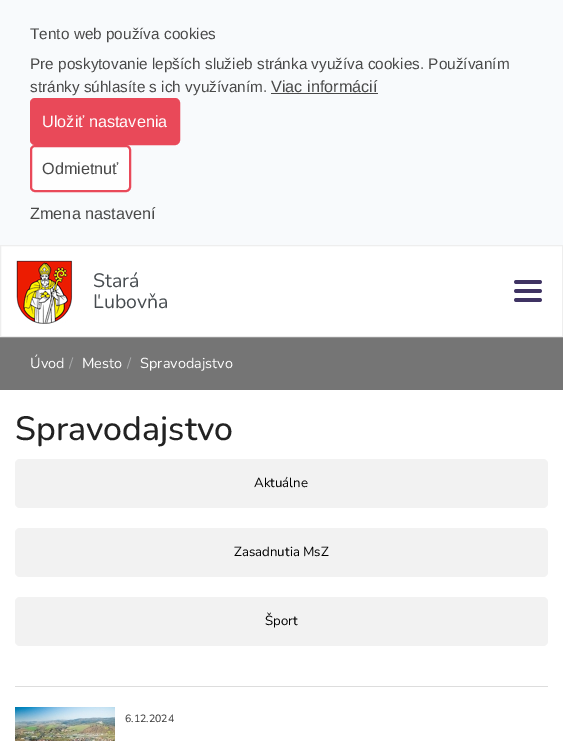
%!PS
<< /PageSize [563 741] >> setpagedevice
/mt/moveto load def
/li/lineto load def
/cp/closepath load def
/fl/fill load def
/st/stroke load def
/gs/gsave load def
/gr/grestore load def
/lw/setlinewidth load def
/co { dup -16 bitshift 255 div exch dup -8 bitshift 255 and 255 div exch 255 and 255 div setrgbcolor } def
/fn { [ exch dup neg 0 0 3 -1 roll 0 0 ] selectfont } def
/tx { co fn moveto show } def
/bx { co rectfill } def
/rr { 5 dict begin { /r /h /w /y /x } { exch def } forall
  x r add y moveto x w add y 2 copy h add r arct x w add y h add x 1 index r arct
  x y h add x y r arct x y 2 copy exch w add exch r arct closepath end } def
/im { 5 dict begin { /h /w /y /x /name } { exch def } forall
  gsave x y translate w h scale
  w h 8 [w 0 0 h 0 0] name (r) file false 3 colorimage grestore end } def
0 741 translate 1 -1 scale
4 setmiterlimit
0 0 563 741 16#757575 bx
0 0 563 245 16#F8FAFC bx
271 93 107 1 16#494949 bx
16#E94959 co
31 99 148 45 4 rr gs fl gr
2 lw
st
16#FEFEFE co
31 146 99 45 4 rr gs fl gr
16#E94959 co
st
16#FFFFFF co
.5 245.5 mt 562.5 245.5 li 562.5 336.5 li .5 336.5 li cp gs fl gr
16#EEEEEE co
1 lw
st
(media/1.raw) 16 260 57 64 im
(media/2.raw) 514 280 28 22 im
0 390 563 351 16#FFFFFF bx
15 686 533 1 16#DDDDDD bx
16#F2F2F2 co
15 459 533 49 5 rr fl
15 528 533 49 5 rr fl
15 597 533 49 5 rr fl
(media/3.raw) 15 707 100 34 im
(Tento web používa cookies) 30 39 /LiberationSans-Regular 15.35 16#494949 tx
(Pre poskytovanie lepších služieb stránka využíva cookies. Používaním) 30 69 /LiberationSans-Regular 15.35 16#494949 tx
(stránky súhlasíte s ich využívaním.) 30 92 /LiberationSans-Regular 15.35 16#494949 tx
(Viac informácií) 271 92 /LiberationSans-Regular 16.25 16#494949 tx
(Uložiť nastavenia) 42 127 /LiberationSans-Regular 16.25 16#FFFFFF tx
(Odmietnuť) 42 174 /LiberationSans-Regular 16.25 16#494949 tx
(Zmena nastavení) 30 219 /LiberationSans-Regular 16.25 16#494949 tx
(Stará) 93 287 /Nunito-Regular 19.5 16#474C50 tx
(Ľubovňa) 93 308 /Nunito-Regular 19.5 16#474C50 tx
(Úvod) 30 368 /Nunito-Regular 14.5 16#FFFFFF tx
(/) 69 368 /Nunito-Regular 14.5 16#A7A9AA tx
(Mesto) 82 368 /Nunito-Regular 14.5 16#FFFFFF tx
(/) 127 368 /Nunito-Regular 14.5 16#A7A9AA tx
(Spravodajstvo) 140 368 /Nunito-Regular 14.5 16#FFFFFF tx
(Spravodajstvo) 15 440 /Nunito-Medium 33.75 16#222222 tx
(Aktuálne) 254 487 /Nunito-Regular 13.25 16#000000 tx
(Zasadnutia MsZ) 234 556 /Nunito-Regular 13.25 16#000000 tx
(Šport) 265 625 /Nunito-Regular 13.25 16#000000 tx
(6.12.2024) 125 722 /Nunito-Regular 10.5 16#333333 tx
showpage
